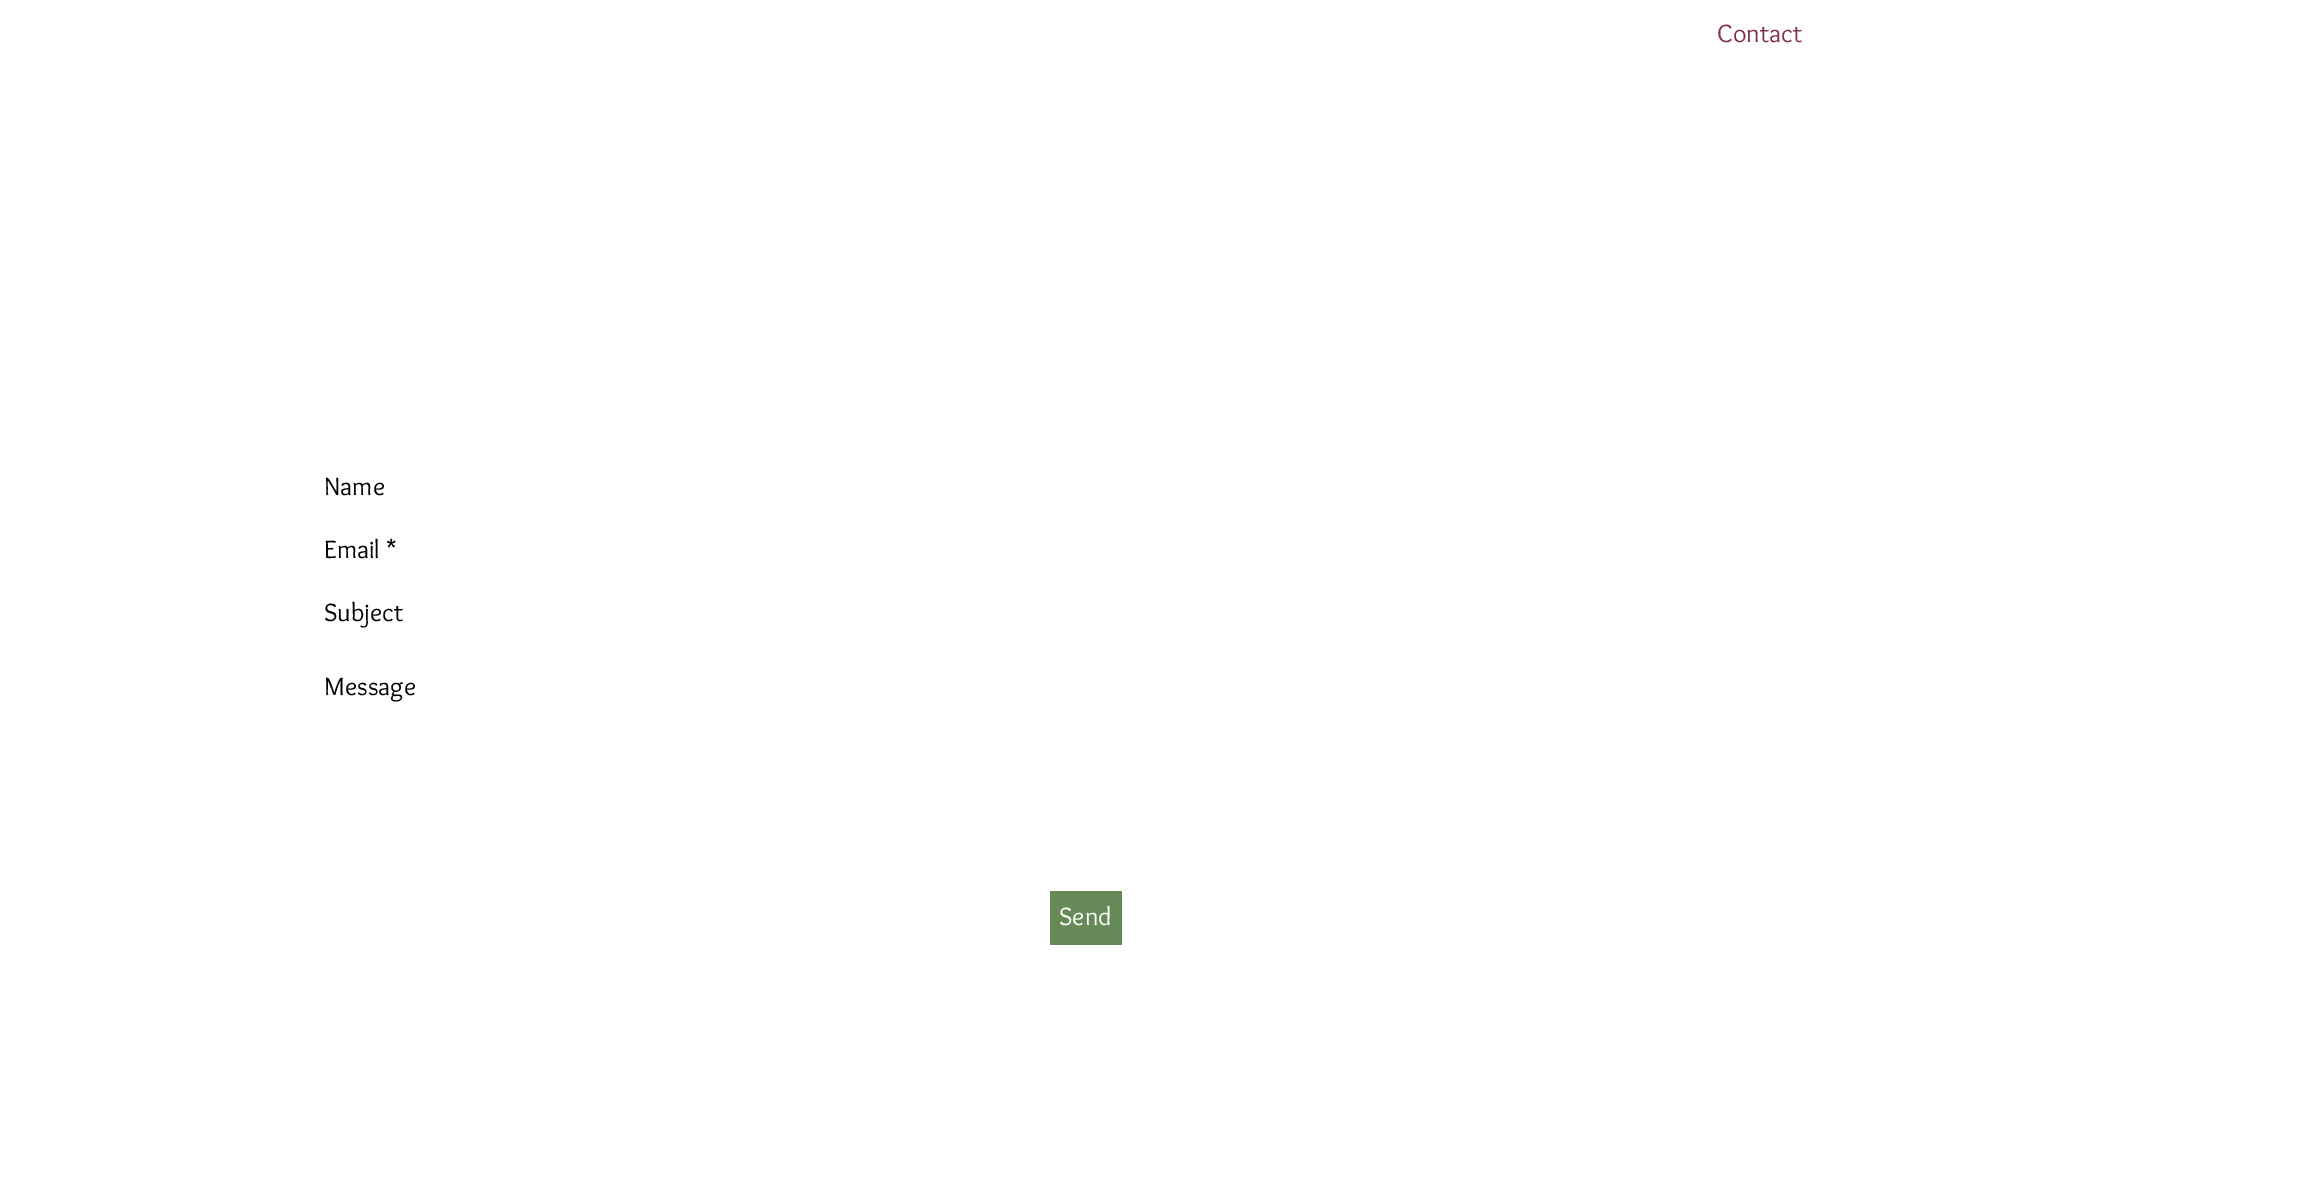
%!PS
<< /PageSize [2302 1201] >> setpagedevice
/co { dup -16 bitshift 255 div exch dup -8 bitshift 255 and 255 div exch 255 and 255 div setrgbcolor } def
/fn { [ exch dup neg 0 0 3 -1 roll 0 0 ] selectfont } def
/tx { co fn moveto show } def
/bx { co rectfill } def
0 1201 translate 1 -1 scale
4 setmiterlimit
0 0 2302 1201 16#FFFFFF bx
1050 891 72 54 16#658A58 bx
(Contact) 1717 42 /Overlock-Regular 26 16#833348 tx
(Name) 324 495 /Overlock-Regular 26 16#050505 tx
(Email *) 324 558 /Overlock-Regular 26 16#050505 tx
(Subject) 324 621 /Overlock-Regular 26 16#050505 tx
(Message) 324 695 /Overlock-Regular 26 16#050505 tx
(Send) 1059 925 /Overlock-Regular 26 16#FFFFFF tx
showpage
